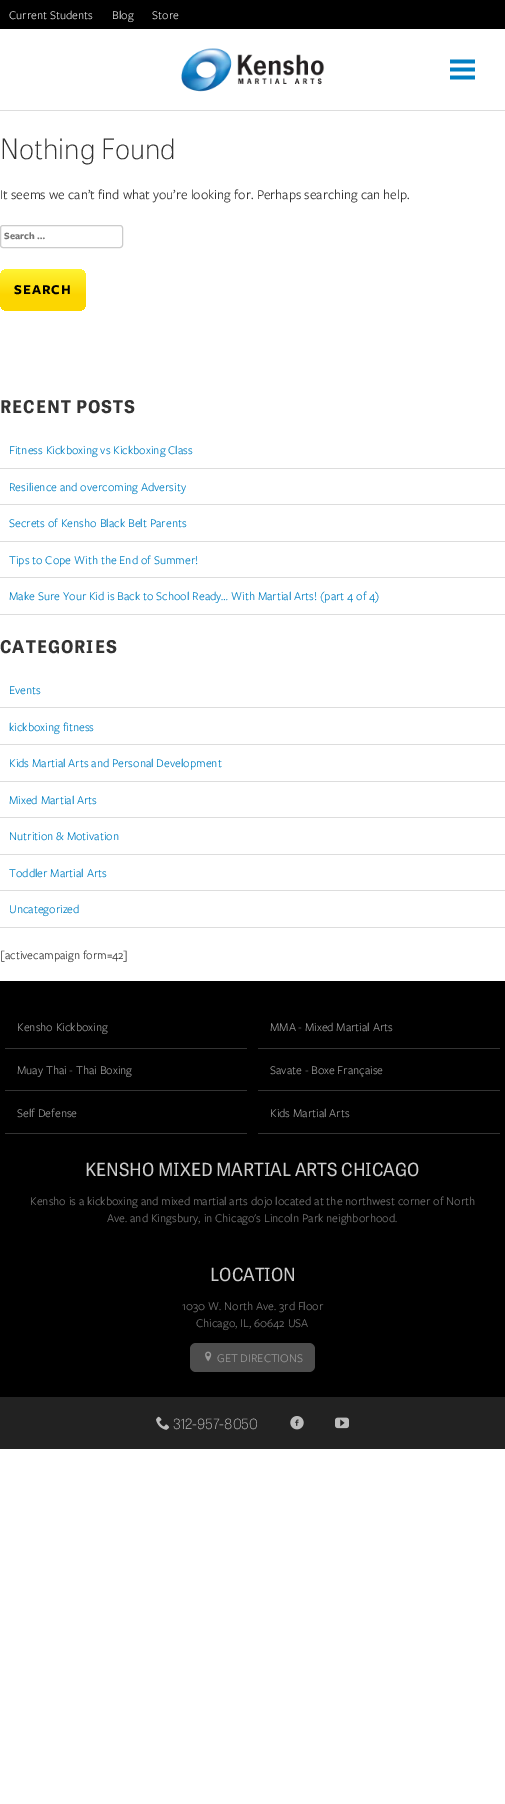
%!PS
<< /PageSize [505 1804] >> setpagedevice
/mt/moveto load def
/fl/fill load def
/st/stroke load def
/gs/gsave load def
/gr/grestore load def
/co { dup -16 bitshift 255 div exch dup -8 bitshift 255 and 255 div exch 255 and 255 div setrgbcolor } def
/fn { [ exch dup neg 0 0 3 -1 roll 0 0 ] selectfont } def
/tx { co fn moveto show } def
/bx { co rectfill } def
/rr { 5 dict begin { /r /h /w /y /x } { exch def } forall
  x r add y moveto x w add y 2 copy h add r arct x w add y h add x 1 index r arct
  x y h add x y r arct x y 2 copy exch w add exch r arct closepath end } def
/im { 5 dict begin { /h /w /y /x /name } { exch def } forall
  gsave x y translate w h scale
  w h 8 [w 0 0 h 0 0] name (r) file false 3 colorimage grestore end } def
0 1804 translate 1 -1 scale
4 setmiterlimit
0 0 505 1804 16#FFFFFF bx
0 110 505 1 16#DDDDDD bx
0 0 505 29 16#000000 bx
(media/1.raw) 181 48 144 44 im
450 59 25 21 16#007FC3 bx
(media/2.raw) 428 42 70 55 im
16#CCCCCC co
.5 225.5 122 22 2.5 rr st
gs 0 269 86 42 8 rr clip newpath
<< /ShadingType 2 /ColorSpace /DeviceRGB /Coords [43 269 43 311] /Extend [true true] /Function << /FunctionType 3 /Domain [0 1] /Functions [<< /FunctionType 2 /Domain [0 1] /C0 [1 .957 .208] /C1 [.988 .839 0] /N 1 >> << /FunctionType 2 /Domain [0 1] /C0 [.988 .839 0] /C1 [.988 .839 0] /N 1 >>] /Bounds [.62] /Encode [0 1 0 1] >> >> shfill gr
0 468 505 1 16#DDDDDD bx
0 504 505 1 16#DDDDDD bx
0 541 505 1 16#DDDDDD bx
0 577 505 1 16#DDDDDD bx
0 614 505 1 16#DDDDDD bx
0 707 505 1 16#DDDDDD bx
0 744 505 1 16#DDDDDD bx
0 781 505 1 16#DDDDDD bx
0 817 505 1 16#DDDDDD bx
0 854 505 1 16#DDDDDD bx
0 890 505 1 16#DDDDDD bx
0 927 505 1 16#DDDDDD bx
0 981 505 416 16#000000 bx
5 1048 242 1 16#333333 bx
258 1048 242 1 16#333333 bx
5 1090 242 1 16#333333 bx
258 1090 242 1 16#333333 bx
5 1133 242 1 16#333333 bx
258 1133 242 1 16#333333 bx
16#4D4D4D co
190 1343 125 29 6 rr fl
(media/3.raw) 205 1351 7 11 im
0 1397 505 52 16#222222 bx
(media/4.raw) 156 1416 14 14 im
(media/5.raw) 290 1416 14 14 im
(media/6.raw) 335 1417 14 12 im
(Current Students) 9 19 /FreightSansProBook-Regular 12.25 16#DDDDDD tx
(Blog) 112 19 /FreightSansProBook-Regular 12.25 16#DDDDDD tx
(Store) 152 19 /FreightSansProBook-Regular 12.25 16#DDDDDD tx
(Nothing Found) 0 159 /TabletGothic-Thin 28 16#333333 tx
(It seems we can’t find what you’re looking for. Perhaps searching can help.) 0 199 /FreightSansProBook-Regular 14 16#333333 tx
(Search …) 4 239 /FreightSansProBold-Bold 10 16#757575 tx
/FreightSansProBold-Bold 14 fn
16#000000 co
14 294 mt 1 0 (SEARCH) ashow
/TabletGothic-Bold 17.5 fn
16#333333 co
0 413 mt 1 0 (RECENT POSTS) ashow
(Fitness Kickboxing vs Kickboxing Class) 9 454 /FreightSansProBook-Regular 12.25 16#007FC3 tx
(Resilience and overcoming Adversity) 9 491 /FreightSansProBook-Regular 12.25 16#007FC3 tx
(Secrets of Kensho Black Belt Parents) 9 527 /FreightSansProBook-Regular 12.25 16#007FC3 tx
(Tips to Cope With the End of Summer!) 9 564 /FreightSansProBook-Regular 12.25 16#007FC3 tx
(Make Sure Your Kid is Back to School Ready… With Martial Arts! \(part 4 of 4\)) 9 600 /FreightSansProBook-Regular 12.25 16#007FC3 tx
/TabletGothic-Bold 17.5 fn
16#333333 co
0 653 mt 1 0 (CATEGORIES) ashow
(Events) 9 694 /FreightSansProBook-Regular 12.25 16#007FC3 tx
(kickboxing fitness) 9 731 /FreightSansProBook-Regular 12.25 16#007FC3 tx
(Kids Martial Arts and Personal Development) 9 767 /FreightSansProBook-Regular 12.25 16#007FC3 tx
(Mixed Martial Arts) 9 804 /FreightSansProBook-Regular 12.25 16#007FC3 tx
(Nutrition & Motivation) 9 840 /FreightSansProBook-Regular 12.25 16#007FC3 tx
(Toddler Martial Arts) 9 877 /FreightSansProBook-Regular 12.25 16#007FC3 tx
(Uncategorized) 9 913 /FreightSansProBook-Regular 12.25 16#007FC3 tx
([activecampaign form=42]) 0 959 /FreightSansProBook-Regular 12.25 16#333333 tx
(Kensho Kickboxing) 17 1031 /FreightSansProBook-Regular 12.25 16#999999 tx
(MMA - Mixed Martial Arts) 270 1031 /FreightSansProBook-Regular 12.25 16#999999 tx
(Muay Thai - Thai Boxing) 17 1074 /FreightSansProBook-Regular 12.25 16#999999 tx
(Savate - Boxe Française) 270 1074 /FreightSansProBook-Regular 12.25 16#999999 tx
(Self Defense) 17 1117 /FreightSansProBook-Regular 12.25 16#999999 tx
(Kids Martial Arts) 270 1117 /FreightSansProBook-Regular 12.25 16#999999 tx
(KENSHO MIXED MARTIAL ARTS CHICAGO) 85 1176 /TabletGothic-Regular 18 16#CCCCCC tx
(Kensho is a kickboxing and mixed martial arts dojo located at the northwest corner of North) 30 1205 /FreightSansProBook-Regular 12.25 16#757575 tx
(Ave. and Kingsbury, in Chicago's Lincoln Park neighborhood.) 107 1222 /FreightSansProBook-Regular 12.25 16#757575 tx
(LOCATION) 210 1281 /TabletGothic-Regular 18 16#CCCCCC tx
(1030 W. North Ave. 3rd Floor) 182 1310 /FreightSansProBook-Regular 12.25 16#757575 tx
(Chicago, IL, 60642 USA) 196 1327 /FreightSansProBook-Regular 12.25 16#757575 tx
(GET DIRECTIONS) 217 1362 /FreightSansProBook-Regular 12.25 16#999999 tx
(312-957-8050) 173 1429 /TabletGothic-Thin 14 16#BDBDBD tx
showpage
